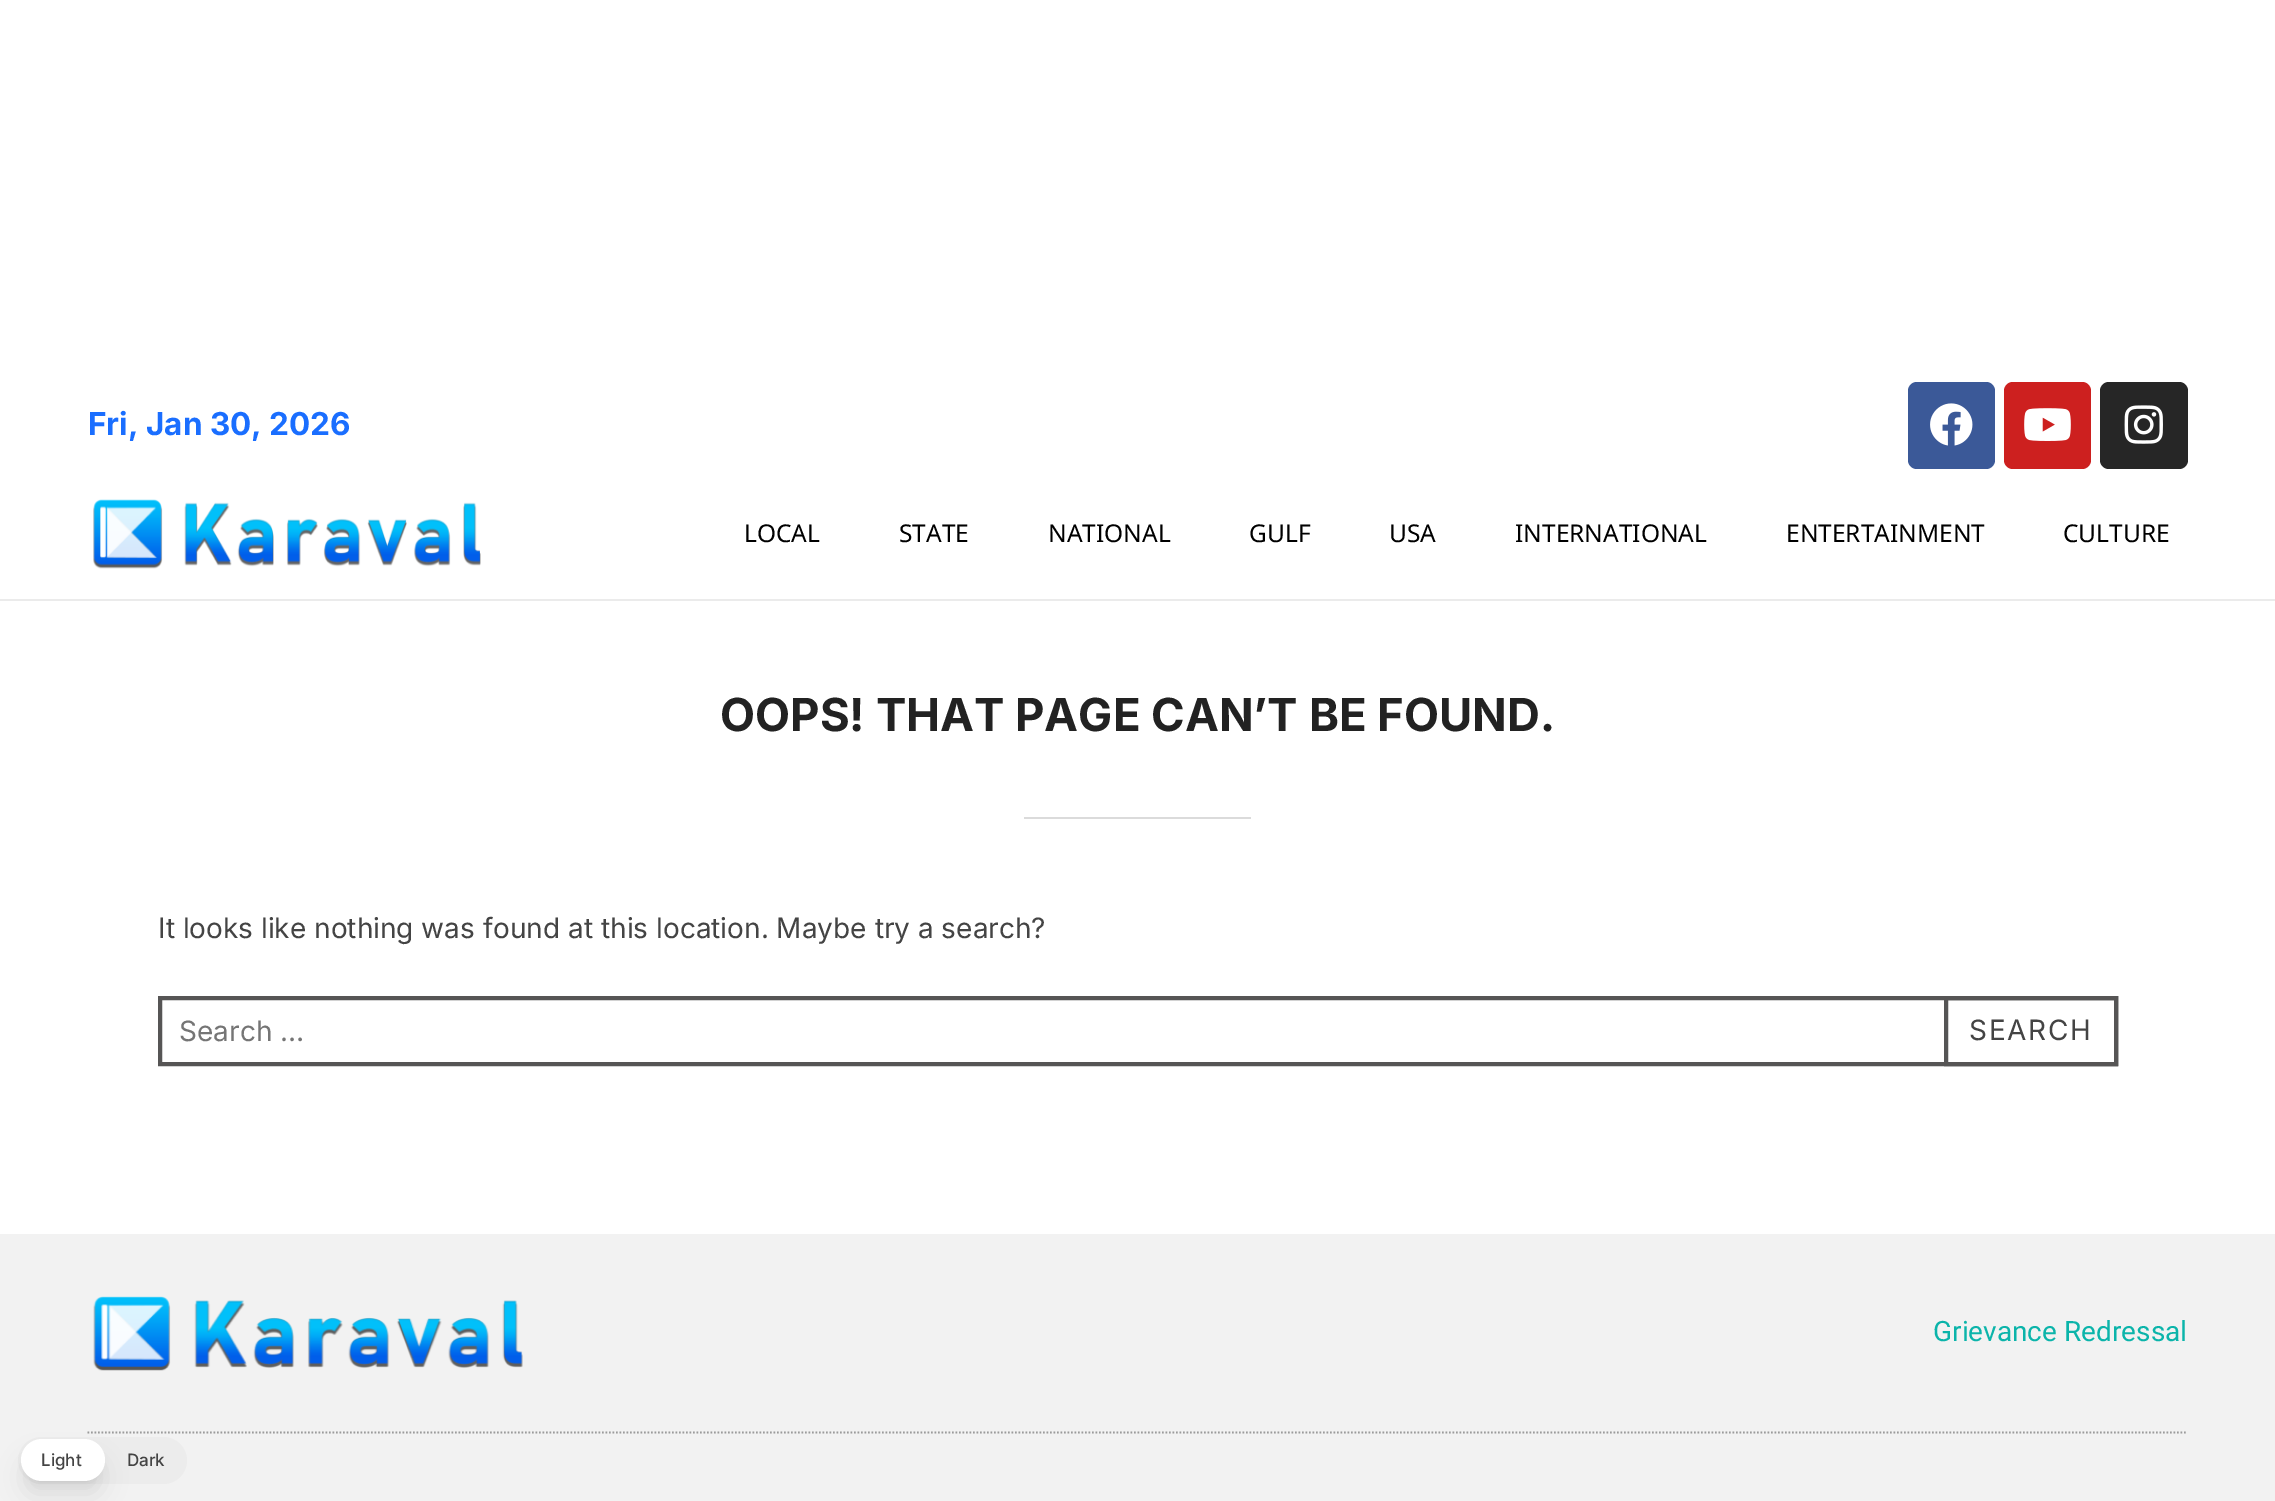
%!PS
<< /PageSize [2275 1501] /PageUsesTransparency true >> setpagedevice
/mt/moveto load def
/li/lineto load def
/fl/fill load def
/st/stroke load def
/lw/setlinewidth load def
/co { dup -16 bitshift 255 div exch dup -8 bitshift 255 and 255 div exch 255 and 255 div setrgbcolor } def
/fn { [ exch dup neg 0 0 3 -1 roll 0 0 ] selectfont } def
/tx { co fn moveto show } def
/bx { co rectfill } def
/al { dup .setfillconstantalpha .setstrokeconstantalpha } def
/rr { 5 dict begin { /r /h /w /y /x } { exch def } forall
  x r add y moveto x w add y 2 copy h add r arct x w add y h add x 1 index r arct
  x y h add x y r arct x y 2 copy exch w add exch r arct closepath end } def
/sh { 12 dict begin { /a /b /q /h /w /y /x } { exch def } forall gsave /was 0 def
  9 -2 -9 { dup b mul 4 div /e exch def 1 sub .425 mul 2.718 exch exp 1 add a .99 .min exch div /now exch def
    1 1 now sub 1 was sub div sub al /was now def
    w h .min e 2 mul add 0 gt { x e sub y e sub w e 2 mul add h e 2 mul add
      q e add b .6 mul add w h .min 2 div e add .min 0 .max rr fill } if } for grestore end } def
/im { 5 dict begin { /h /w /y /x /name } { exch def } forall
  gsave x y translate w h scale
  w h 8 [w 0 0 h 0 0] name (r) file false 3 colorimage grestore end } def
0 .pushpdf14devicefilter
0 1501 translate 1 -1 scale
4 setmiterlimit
0 0 2275 1501 16#FFFFFF bx
16#3B5998 co
1908 382 87 87 9 rr fl
(media/1.raw) 1930 403 43 43 im
16#CD201F co
2004 382 87 87 9 rr fl
(media/2.raw) 2024 408 47 33 im
16#262626 co
2100 382 88 87 9 rr fl
(media/3.raw) 2124 405 39 39 im
0 599 2275 2 16#EBEBEB bx
(media/4.raw) 93 499 388 70 im
1024 817 227 2 16#DBDBDB bx
16#565555 co
4 lw
160 998 1956 66 rectstroke
1946 998 170 66 rectstroke
0 1234 2275 267 16#F2F2F2 bx
16#9B9B9B co
1.8 lw
[1.75 1.75] 0 setdash
87.5 1432.5 mt 2187.5 1432.5 li st
(media/5.raw) 93 1296 430 75 im
16#ECECEC co
18 1437 169 47 23.5 rr fl
16#000000 co
28 1453 70 28 14 5 .1 sh
26 1461 74 32 16 13 .1 sh
16#FFFFFF co
21 1439 84 42 21 rr fl
(Fri, Jan 30, 2026) 88 435 /Inter-Bold 31.5 16#1A6EFF tx
(LOCAL) 744 542 /NotoSans-Regular 24.5 16#000000 tx
(STATE) 899 542 /NotoSans-Regular 24.5 16#000000 tx
(NATIONAL) 1048 542 /NotoSans-Regular 24.5 16#000000 tx
(GULF) 1249 542 /NotoSans-Regular 24.5 16#000000 tx
(USA) 1389 542 /NotoSans-Regular 24.5 16#000000 tx
(INTERNATIONAL) 1515 542 /NotoSans-Regular 24.5 16#000000 tx
(ENTERTAINMENT) 1786 542 /NotoSans-Regular 24.5 16#000000 tx
(CULTURE) 2063 542 /NotoSans-Regular 24.5 16#000000 tx
(OOPS! THAT PAGE CAN’T BE FOUND.) 720 731 /Inter-Bold 45.5 16#222222 tx
(It looks like nothing was found at this location. Maybe try a search?) 158 938 /Inter-Regular 28 16#444444 tx
(Search …) 179 1041 /Inter-Regular 28 16#757575 tx
16#444444 co
1969 1040 mt 1.75 0 (SEARCH) ashow
(Grievance Redressal) 1933 1341 /Roboto-Regular 28 16#0BB4AA tx
(Light) 41 1466 /Inter-Medium 17 16#444444 tx
(Dark) 127 1466 /Inter-Medium 17 16#444444 tx
.poppdf14devicefilter showpage
